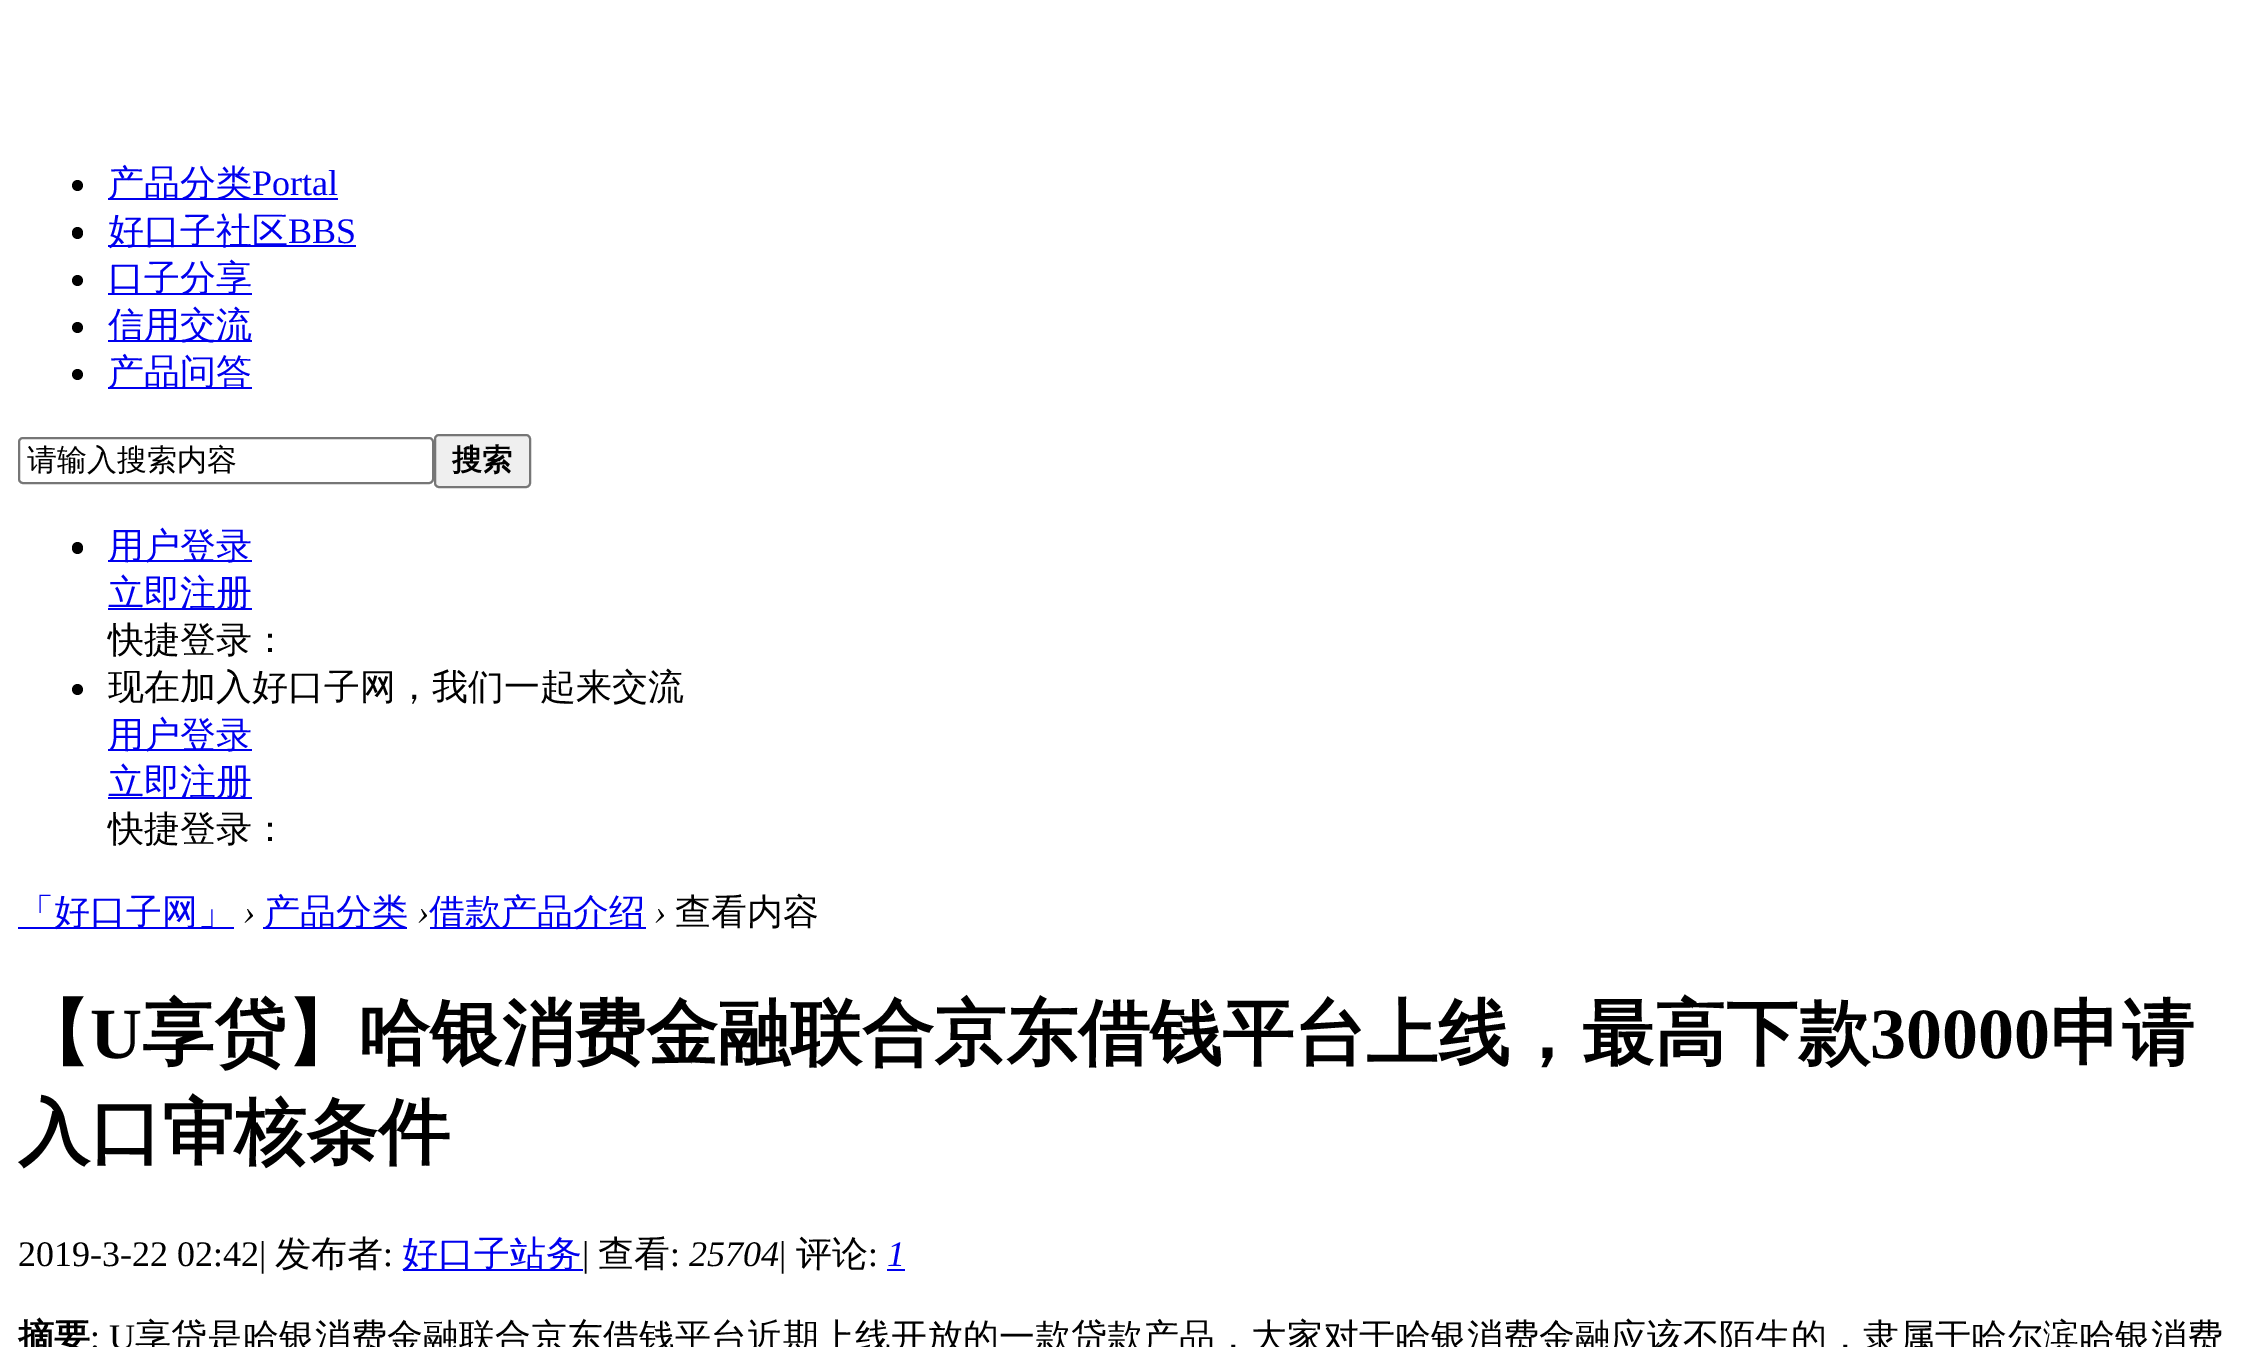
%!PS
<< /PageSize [2249 1347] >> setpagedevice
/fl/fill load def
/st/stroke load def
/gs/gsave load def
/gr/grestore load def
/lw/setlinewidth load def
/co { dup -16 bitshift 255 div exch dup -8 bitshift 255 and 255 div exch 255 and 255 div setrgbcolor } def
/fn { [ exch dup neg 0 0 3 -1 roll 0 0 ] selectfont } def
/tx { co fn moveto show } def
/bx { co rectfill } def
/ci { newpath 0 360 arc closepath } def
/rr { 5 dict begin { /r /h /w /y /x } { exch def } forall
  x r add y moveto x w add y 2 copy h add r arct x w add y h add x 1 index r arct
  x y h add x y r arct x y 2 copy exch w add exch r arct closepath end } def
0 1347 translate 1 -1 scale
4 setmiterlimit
0 0 2249 1347 16#FFFFFF bx
16#000000 co
77.5 185.5 5.5 ci fl
108 198 230 2 16#0000EE bx
16#000000 co
72 227 11 12 5.5 rr fl
108 245 248 2 16#0000EE bx
16#000000 co
77.5 280.5 5.5 ci fl
108 293 144 2 16#0000EE bx
16#000000 co
77.5 327.5 5.5 ci fl
108 340 144 2 16#0000EE bx
16#000000 co
77.5 374.5 5.5 ci fl
108 387 144 2 16#0000EE bx
16#767676 co
2 lw
19 438 414 45 4 rr st
16#EFEFEF co
435 435 95 52 4 rr gs fl gr
16#767676 co
st
16#000000 co
72 542 11 12 5.5 rr fl
108 560 144 2 16#0000EE bx
108 608 144 2 16#0000EE bx
16#000000 co
77.5 689.5 5.5 ci fl
108 749 144 2 16#0000EE bx
108 797 144 2 16#0000EE bx
18 927 216 2 16#0000EE bx
263 927 144 2 16#0000EE bx
430 927 216 2 16#0000EE bx
403 1269 180 2 16#0000EE bx
887 1269 18 2 16#0000EE bx
(产品分类) 108 195 /WenQuanYiZenHei-Medium 36 16#0000EE tx
(Portal) 252 195 /LiberationSerif-Regular 36 16#0000EE tx
(好口子社区) 108 243 /WenQuanYiZenHei-Medium 36 16#0000EE tx
(BBS) 288 243 /LiberationSerif-Regular 36 16#0000EE tx
(口子分享) 108 290 /WenQuanYiZenHei-Medium 36 16#0000EE tx
(信用交流) 108 337 /WenQuanYiZenHei-Medium 36 16#0000EE tx
(产品问答) 108 384 /WenQuanYiZenHei-Medium 36 16#0000EE tx
(请输入搜索内容) 27 470 /WenQuanYiZenHei-Medium 30 16#000000 tx
(搜索) 452 470 /WenQuanYiZenHei-Bold 30 16#000000 tx
(用户登录) 108 558 /WenQuanYiZenHei-Medium 36 16#0000EE tx
(立即注册) 108 605 /WenQuanYiZenHei-Medium 36 16#0000EE tx
(快捷登录：) 108 652 /WenQuanYiZenHei-Medium 36 16#000000 tx
(现在加入好口子网，我们一起来交流) 108 699 /WenQuanYiZenHei-Medium 36 16#000000 tx
(用户登录) 108 747 /WenQuanYiZenHei-Medium 36 16#0000EE tx
(立即注册) 108 794 /WenQuanYiZenHei-Medium 36 16#0000EE tx
(快捷登录：) 108 841 /WenQuanYiZenHei-Medium 36 16#000000 tx
(「好口子网」) 18 924 /WenQuanYiZenHei-Medium 36 16#0000EE tx
(›) 243 924 /LiberationSerif-Italic 36 16#000000 tx
(产品分类) 264 924 /WenQuanYiZenHei-Medium 36 16#0000EE tx
(›) 417 924 /LiberationSerif-Italic 36 16#000000 tx
(借款产品介绍) 429 924 /WenQuanYiZenHei-Medium 36 16#0000EE tx
(›) 654 924 /LiberationSerif-Italic 36 16#000000 tx
(查看内容) 675 924 /WenQuanYiZenHei-Medium 36 16#000000 tx
(【) 18 1058 /WenQuanYiZenHei-Bold 72 16#000000 tx
(U) 90 1058 /LiberationSerif-Bold 72 16#000000 tx
(享贷】哈银消费金融联合京东借钱平台上线，最高下款) 142 1058 /WenQuanYiZenHei-Bold 72 16#000000 tx
(30000) 1870 1058 /LiberationSerif-Bold 72 16#000000 tx
(申请) 2050 1058 /WenQuanYiZenHei-Bold 72 16#000000 tx
(入口审核条件) 18 1157 /WenQuanYiZenHei-Bold 72 16#000000 tx
(2019-3-22 02:42|) 18 1266 /LiberationSerif-Regular 36 16#000000 tx
(发布者) 275 1266 /WenQuanYiZenHei-Medium 36 16#000000 tx
(:) 383 1266 /LiberationSerif-Regular 36 16#000000 tx
(好口子站务) 402 1266 /WenQuanYiZenHei-Medium 36 16#0000EE tx
(|) 582 1266 /LiberationSerif-Regular 36 16#000000 tx
(查看) 598 1266 /WenQuanYiZenHei-Medium 36 16#000000 tx
(:) 670 1266 /LiberationSerif-Regular 36 16#000000 tx
(25704) 689 1266 /LiberationSerif-Italic 36 16#000000 tx
(|) 779 1266 /LiberationSerif-Regular 36 16#000000 tx
(评论) 796 1266 /WenQuanYiZenHei-Medium 36 16#000000 tx
(:) 868 1266 /LiberationSerif-Regular 36 16#000000 tx
(1) 887 1266 /LiberationSerif-Italic 36 16#0000EE tx
(摘要) 18 1349 /WenQuanYiZenHei-Bold 36 16#000000 tx
(: U) 90 1349 /LiberationSerif-Regular 36 16#000000 tx
(享贷是哈银消费金融联合京东借钱平台近期上线开放的一款贷款产品，大家对于哈银消费金融应该不陌生的，隶属于哈尔滨哈银消费) 135 1349 /WenQuanYiZenHei-Medium 36 16#000000 tx
showpage
